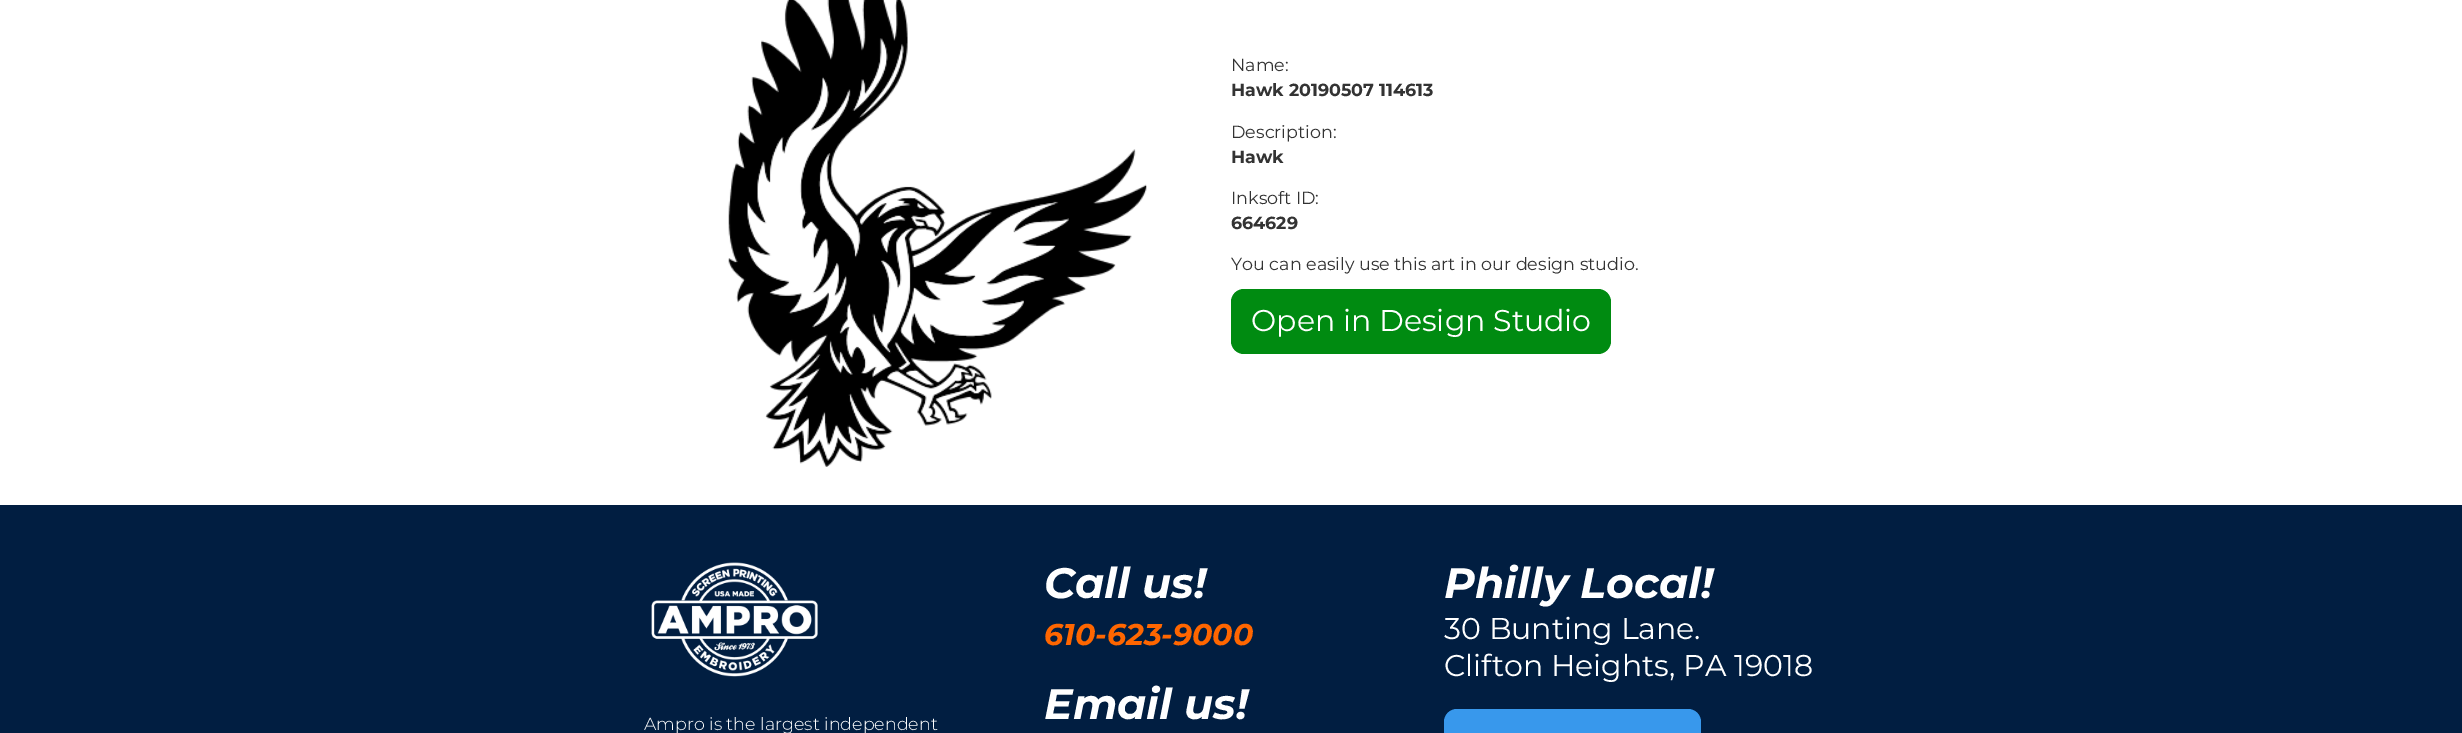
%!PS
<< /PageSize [2462 733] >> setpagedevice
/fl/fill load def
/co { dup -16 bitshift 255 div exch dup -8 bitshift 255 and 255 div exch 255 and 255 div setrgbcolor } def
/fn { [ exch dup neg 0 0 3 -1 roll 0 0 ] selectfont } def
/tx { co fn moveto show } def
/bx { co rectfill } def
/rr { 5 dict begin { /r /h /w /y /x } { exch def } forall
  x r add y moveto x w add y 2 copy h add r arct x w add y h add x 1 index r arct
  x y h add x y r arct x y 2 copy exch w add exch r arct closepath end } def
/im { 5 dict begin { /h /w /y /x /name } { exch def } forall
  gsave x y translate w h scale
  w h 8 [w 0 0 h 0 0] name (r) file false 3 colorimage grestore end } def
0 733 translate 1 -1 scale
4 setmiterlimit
0 0 2462 733 16#FFFFFF bx
(media/1.raw) 728 0 419 467 im
16#008B11 co
1231 289 380 65 13 rr fl
0 505 2462 228 16#011E41 bx
16#3898EC co
1444 709 257 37 13 rr fl
(media/2.raw) 651 562 167 115 im
(Name:) 1231 71 /Montserrat-Regular 17.5 16#333333 tx
(Hawk 20190507 114613) 1231 96 /Montserrat-Bold 17.5 16#333333 tx
(Description:) 1231 138 /Montserrat-Regular 17.5 16#333333 tx
(Hawk) 1231 163 /Montserrat-Bold 17.5 16#333333 tx
(Inksoft ID:) 1231 204 /Montserrat-Regular 17.5 16#333333 tx
(664629) 1231 229 /Montserrat-Bold 17.5 16#333333 tx
(You can easily use this art in our design studio.) 1231 270 /Montserrat-Regular 17.5 16#333333 tx
(Open in Design Studio) 1251 331 /Montserrat-Regular 30 16#FFFFFF tx
(Call us!) 1044 598 /Montserrat-BoldItalic 42.5 16#FFFFFF tx
(610-623-9000) 1044 645 /Montserrat-BoldItalic 30 16#FF6600 tx
(Email us!) 1044 719 /Montserrat-BoldItalic 42.5 16#FFFFFF tx
(Philly Local!) 1444 598 /Montserrat-BoldItalic 42.5 16#FFFFFF tx
(30 Bunting Lane.) 1444 639 /Montserrat-Regular 30 16#FFFFFF tx
(Clifton Heights, PA 19018) 1444 676 /Montserrat-Regular 30 16#FFFFFF tx
(Ampro is the largest independent) 644 730 /Montserrat-Light 17.5 16#FFFFFF tx
showpage
